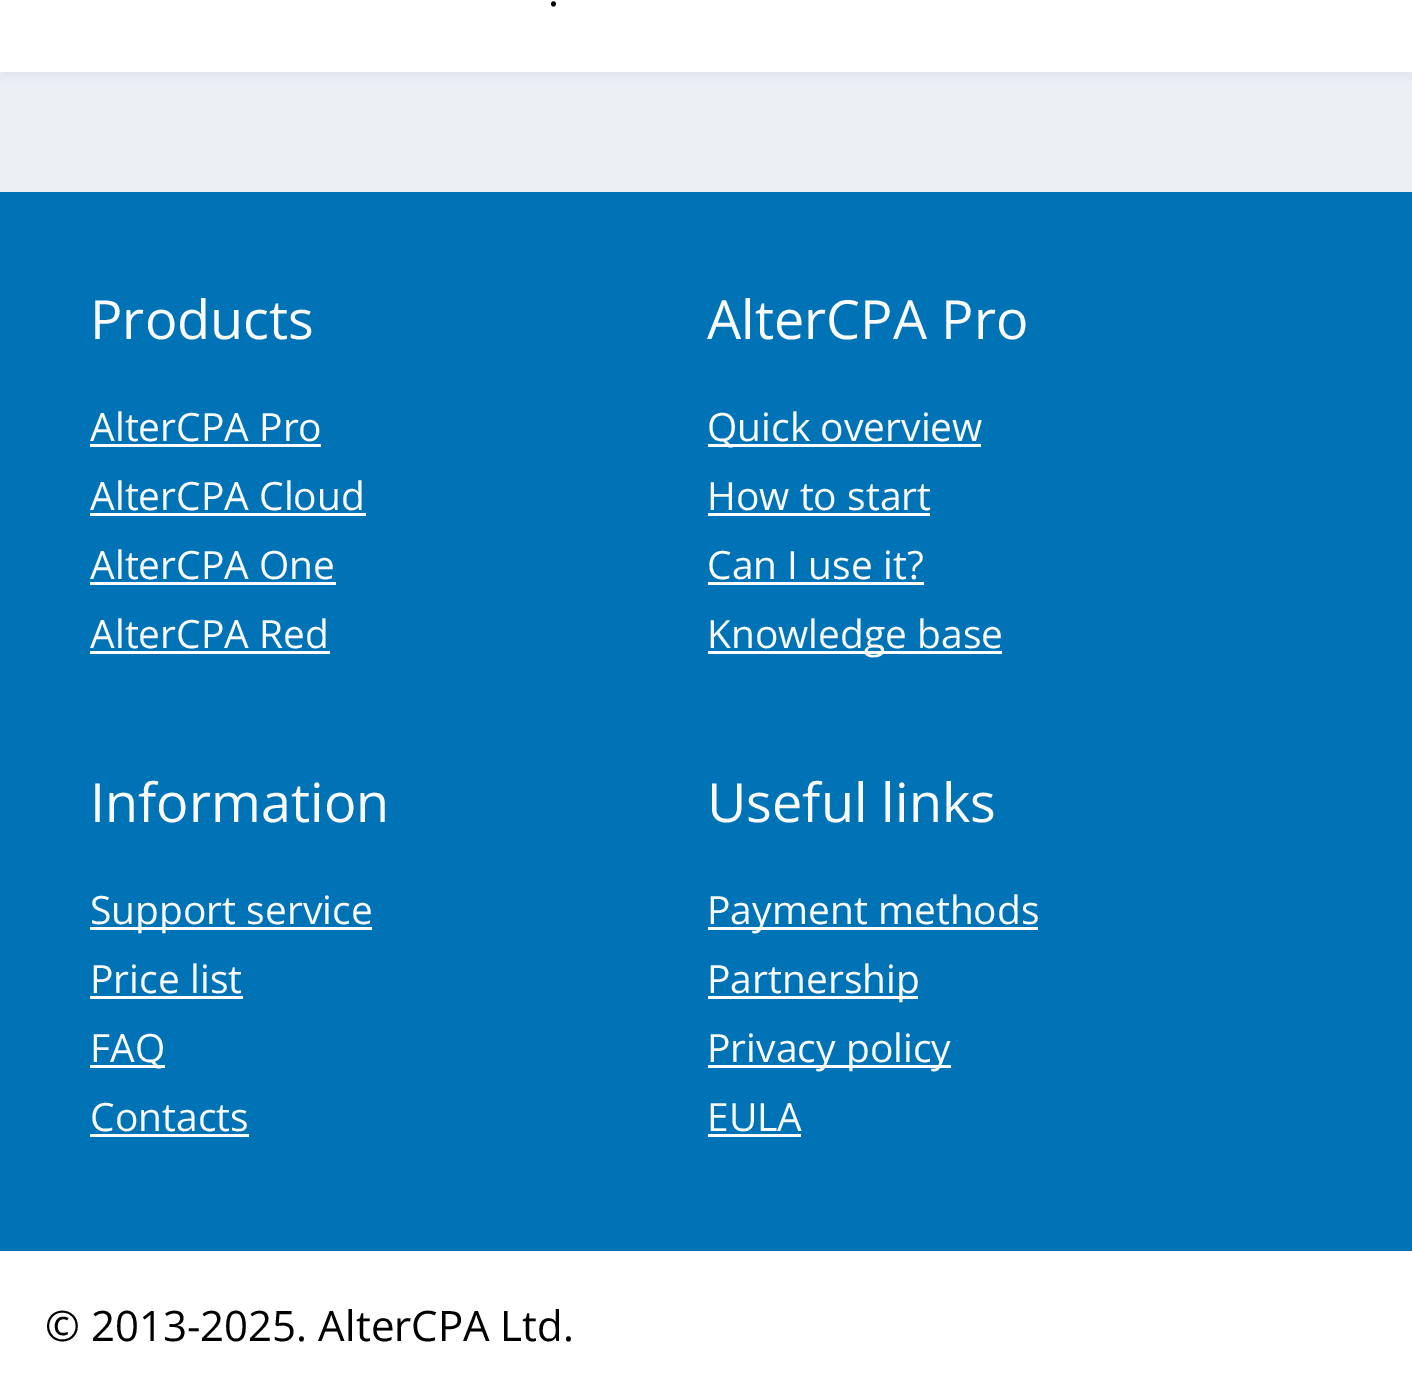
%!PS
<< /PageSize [1412 1400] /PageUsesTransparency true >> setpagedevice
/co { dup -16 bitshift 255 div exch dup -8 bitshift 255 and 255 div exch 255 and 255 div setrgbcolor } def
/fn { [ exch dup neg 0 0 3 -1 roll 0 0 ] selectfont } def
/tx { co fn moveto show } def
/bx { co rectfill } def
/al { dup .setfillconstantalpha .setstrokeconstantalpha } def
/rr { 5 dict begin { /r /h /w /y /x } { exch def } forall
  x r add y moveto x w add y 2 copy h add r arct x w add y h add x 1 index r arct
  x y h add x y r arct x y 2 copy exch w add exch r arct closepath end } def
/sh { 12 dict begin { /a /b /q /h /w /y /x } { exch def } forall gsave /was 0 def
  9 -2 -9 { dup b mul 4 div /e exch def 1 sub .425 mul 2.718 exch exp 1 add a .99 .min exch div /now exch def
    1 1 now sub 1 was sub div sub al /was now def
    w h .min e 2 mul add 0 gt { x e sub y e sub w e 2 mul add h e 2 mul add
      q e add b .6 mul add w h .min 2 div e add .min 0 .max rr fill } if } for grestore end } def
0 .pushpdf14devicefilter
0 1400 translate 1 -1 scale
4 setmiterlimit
0 0 1412 1400 16#FFFFFF bx
0 72 1412 120 16#ECF0F5 bx
16#7E8EB1 co
0 -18 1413 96 0 6 .12 sh
0 0 1412 72 16#FFFFFF bx
0 192 1412 1059 16#0073B7 bx
90 444 231 3 16#FFFFFF bx
90 513 276 3 16#FFFFFF bx
90 582 246 3 16#FFFFFF bx
90 651 240 3 16#FFFFFF bx
708 444 273 3 16#FFFFFF bx
708 513 222 3 16#FFFFFF bx
708 582 216 3 16#FFFFFF bx
708 651 294 3 16#FFFFFF bx
90 927 282 3 16#FFFFFF bx
90 996 153 3 16#FFFFFF bx
90 1065 75 3 16#FFFFFF bx
90 1134 159 3 16#FFFFFF bx
708 927 330 3 16#FFFFFF bx
708 996 210 3 16#FFFFFF bx
708 1065 243 3 16#FFFFFF bx
708 1134 93 3 16#FFFFFF bx
(.) 548 6 /OpenSans-Regular 42 16#000000 tx
(Products) 90 339 /OpenSans-Regular 54 16#FAFAFA tx
(AlterCPA Pro) 90 441 /OpenSans-Regular 39 16#FAFAFA tx
(AlterCPA Cloud) 90 510 /OpenSans-Regular 39 16#FAFAFA tx
(AlterCPA One) 90 579 /OpenSans-Regular 39 16#FAFAFA tx
(AlterCPA Red) 90 648 /OpenSans-Regular 39 16#FAFAFA tx
(AlterCPA Pro) 707 339 /OpenSans-Regular 54 16#FAFAFA tx
(Quick overview) 707 441 /OpenSans-Regular 39 16#FAFAFA tx
(How to start) 707 510 /OpenSans-Regular 39 16#FAFAFA tx
(Can I use it?) 707 579 /OpenSans-Regular 39 16#FAFAFA tx
(Knowledge base) 707 648 /OpenSans-Regular 39 16#FAFAFA tx
(Information) 90 822 /OpenSans-Regular 54 16#FAFAFA tx
(Support service) 90 924 /OpenSans-Regular 39 16#FAFAFA tx
(Price list) 90 993 /OpenSans-Regular 39 16#FAFAFA tx
(FAQ) 90 1062 /OpenSans-Regular 39 16#FAFAFA tx
(Contacts) 90 1131 /OpenSans-Regular 39 16#FAFAFA tx
(Useful links) 707 822 /OpenSans-Regular 54 16#FAFAFA tx
(Payment methods) 707 924 /OpenSans-Regular 39 16#FAFAFA tx
(Partnership) 707 993 /OpenSans-Regular 39 16#FAFAFA tx
(Privacy policy) 707 1062 /OpenSans-Regular 39 16#FAFAFA tx
(EULA) 707 1131 /OpenSans-Regular 39 16#FAFAFA tx
(© 2013-2025. AlterCPA Ltd.) 45 1341 /OpenSans-Regular 42 16#000000 tx
.poppdf14devicefilter showpage
